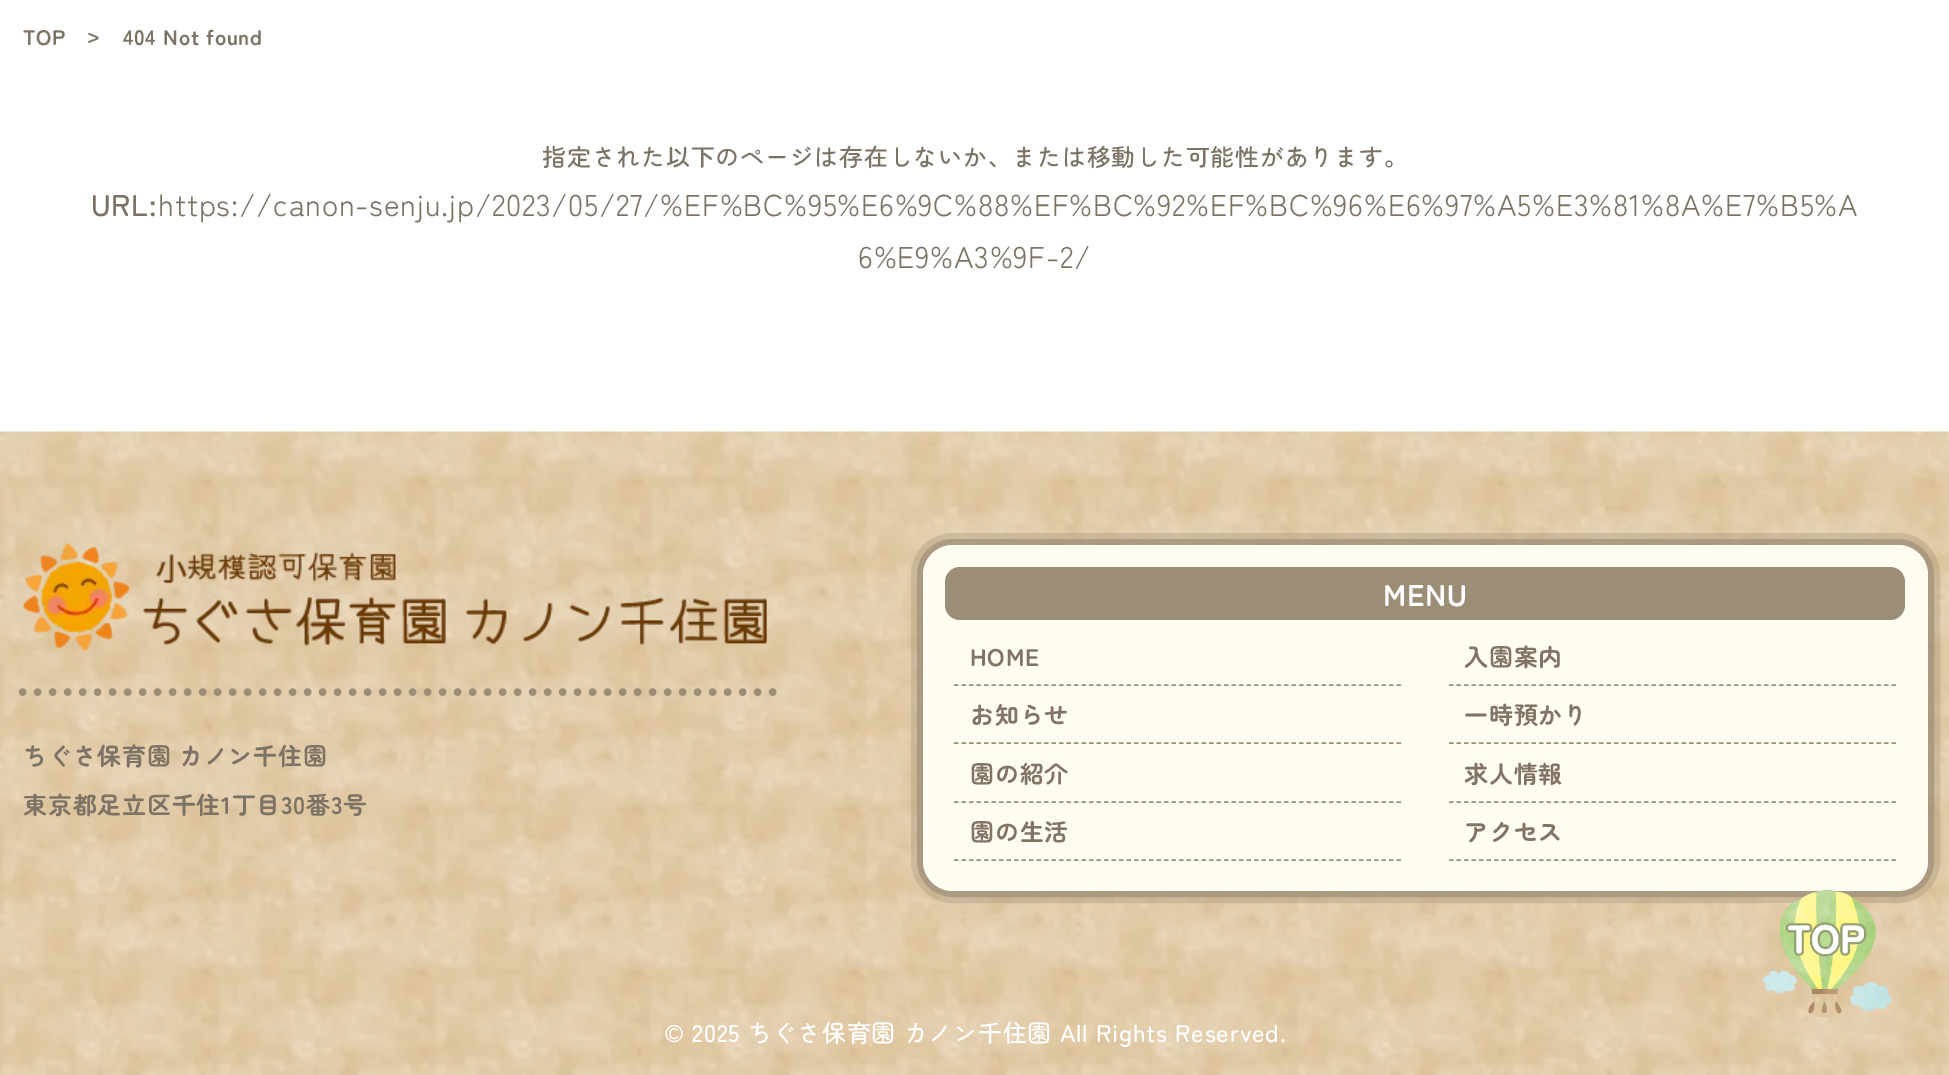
%!PS
<< /PageSize [1949 1075] /PageUsesTransparency true >> setpagedevice
/mt/moveto load def
/li/lineto load def
/fl/fill load def
/st/stroke load def
/lw/setlinewidth load def
/co { dup -16 bitshift 255 div exch dup -8 bitshift 255 and 255 div exch 255 and 255 div setrgbcolor } def
/fn { [ exch dup neg 0 0 3 -1 roll 0 0 ] selectfont } def
/bx { co rectfill } def
/al { dup .setfillconstantalpha .setstrokeconstantalpha } def
/rr { 5 dict begin { /r /h /w /y /x } { exch def } forall
  x r add y moveto x w add y 2 copy h add r arct x w add y h add x 1 index r arct
  x y h add x y r arct x y 2 copy exch w add exch r arct closepath end } def
/im { 5 dict begin { /h /w /y /x /name } { exch def } forall
  gsave x y translate w h scale
  w h 8 [w 0 0 h 0 0] name (r) file false 3 colorimage grestore end } def
0 .pushpdf14devicefilter
0 1075 translate 1 -1 scale
4 setmiterlimit
0 0 1949 1075 16#FFFFFF bx
(media/1.raw) 0 431 1949 644 im
16#9C8D76 co
7.5 lw
1 setlinecap
[0 15] 0 setdash
22.5 692 mt 772.5 692 li st
(media/2.raw) 22 544 745 107 im
0.33 al
12 lw
0 setlinecap
[] 0 setdash
917 539 1017 358 36 rr st
0.67 al
6 lw
920 542 1011 352 33 rr st
1 al
16#FFFCF2 co
923 545 1005 346 30 rr fl
16#9C8D76 co
945 567 960 53 15 rr fl
1.5 lw
[4.5 3] 0 setdash
954 685 mt 1401 685 li st
954 743 mt 1401 743 li st
954 802 mt 1401 802 li st
954 860 mt 1401 860 li st
1449 685 mt 1896 685 li st
1449 743 mt 1896 743 li st
1449 802 mt 1896 802 li st
1449 860 mt 1896 860 li st
(media/3.raw) 1763 889 129 128 im
/ZenMaruGothic-Bold 21 fn
16#7C7365 co
23 45 mt .75 0 (TOP) ashow
87 43 mt .75 0 (>) ashow
123 45 mt .75 0 (404 Not found) ashow
/ZenMaruGothic-Medium 24 fn
542 166 mt .75 0 (指定された以下のページは存在しないか、または移動した可能性があります。) ashow
/ZenMaruGothic-Medium 30 fn
91 216 mt .75 0 (URL:) ashow
/ZenMaruGothic-Regular 30 fn
158 216 mt .75 0 (https://canon-senju.jp/2023/05/27/%EF%BC%95%E6%9C%88%EF%BC%92%EF%BC%96%E6%97%A5%E3%81%8A%E7%B5%A) ashow
858 268 mt .75 0 (6%E9%A3%9F-2/) ashow
/ZenMaruGothic-Bold 24 fn
23 765 mt .75 0 (ちぐさ保育園 カノン千住園) ashow
23 814 mt .75 0 (東京都足立区千住1丁目30番3号) ashow
/ZenMaruGothic-Bold 30 fn
16#FFFFFF co
1383 606 mt .75 0 (MENU) ashow
/ZenMaruGothic-Bold 24 fn
16#827365 co
970 666 mt .75 0 (HOME) ashow
970 724 mt .75 0 (お知らせ) ashow
970 783 mt .75 0 (園の紹介) ashow
970 841 mt .75 0 (園の生活) ashow
1464 666 mt .75 0 (入園案内) ashow
1464 724 mt .75 0 (一時預かり) ashow
1464 783 mt .75 0 (求人情報) ashow
1464 841 mt .75 0 (アクセス) ashow
/ZenMaruGothic-Medium 24 fn
16#FFFFFF co
664 1042 mt .75 0 (© 2025 ちぐさ保育園 カノン千住園 All Rights Reserved.) ashow
.poppdf14devicefilter showpage
